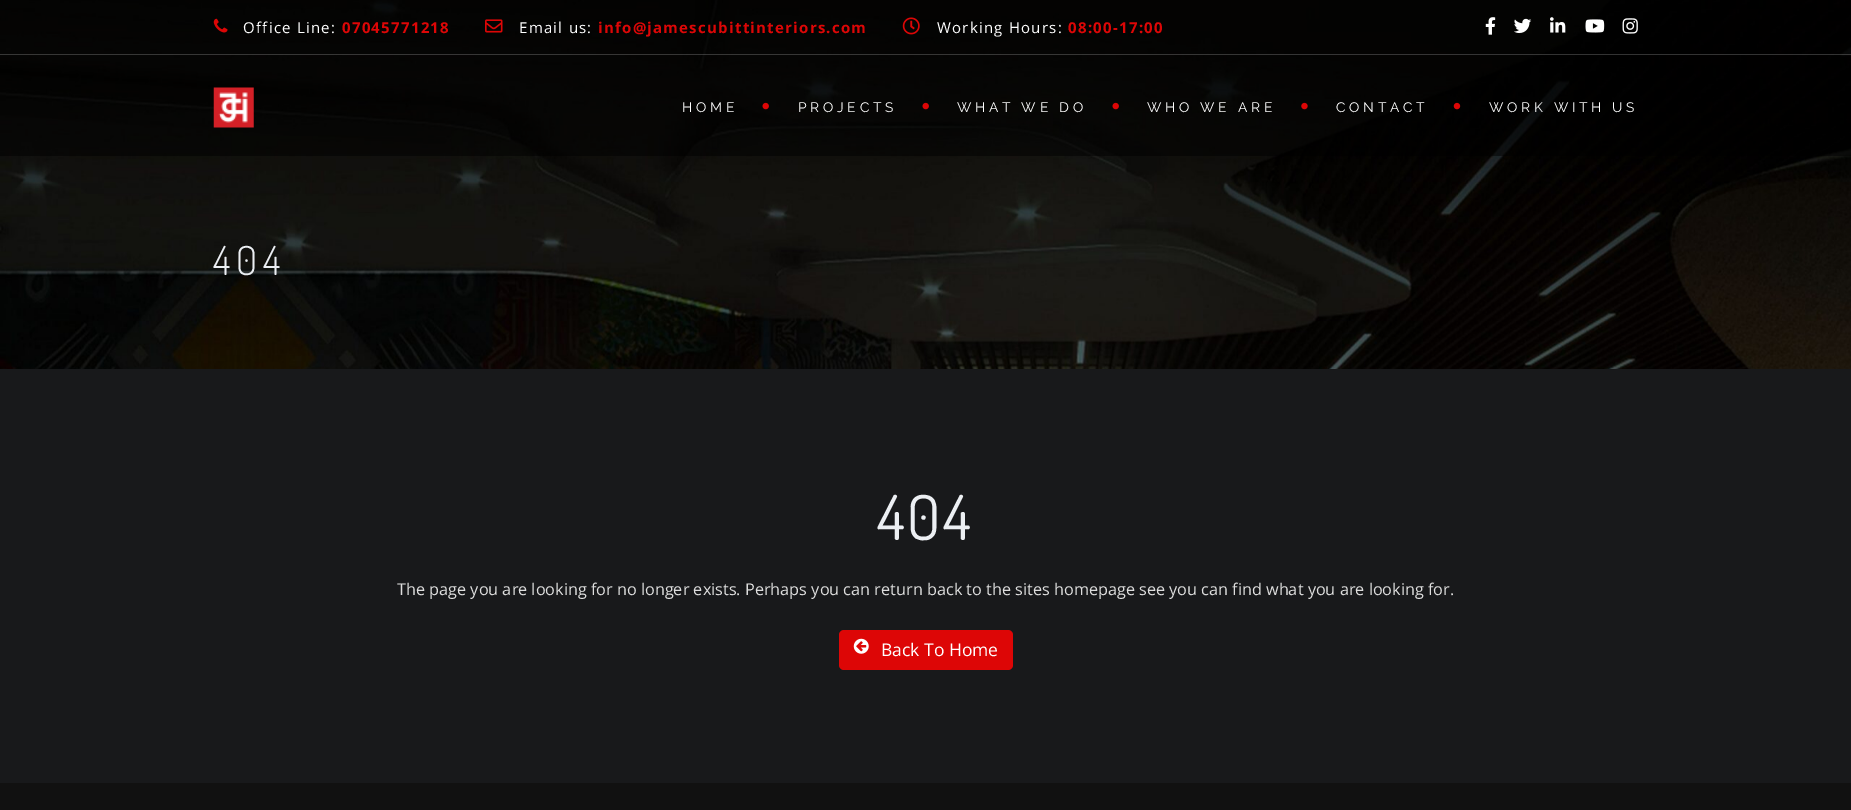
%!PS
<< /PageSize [1851 810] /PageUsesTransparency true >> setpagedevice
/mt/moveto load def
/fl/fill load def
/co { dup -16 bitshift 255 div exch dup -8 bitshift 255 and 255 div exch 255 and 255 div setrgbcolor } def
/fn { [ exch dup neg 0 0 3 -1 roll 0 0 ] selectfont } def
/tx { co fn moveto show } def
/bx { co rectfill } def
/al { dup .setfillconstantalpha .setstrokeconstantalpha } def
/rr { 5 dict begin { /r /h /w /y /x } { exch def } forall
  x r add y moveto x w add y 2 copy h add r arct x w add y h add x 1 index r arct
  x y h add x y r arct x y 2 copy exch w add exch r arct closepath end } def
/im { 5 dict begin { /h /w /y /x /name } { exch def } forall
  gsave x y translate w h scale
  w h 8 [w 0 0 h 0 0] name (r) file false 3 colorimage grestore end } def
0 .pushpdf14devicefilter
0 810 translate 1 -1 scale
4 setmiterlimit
0 0 1851 810 16#FFFFFF bx
(media/15.raw) 0 0 1851 369 im
0.5 al
0 0 1851 156 16#000000 bx
0.2 al
0 54 1851 1 16#FFFFFF bx
1 al
(media/1.raw) 213 18 15 15 im
(media/2.raw) 485 19 18 14 im
(media/3.raw) 902 17 18 18 im
(media/4.raw) 1485 17 11 18 im
(media/5.raw) 1514 18 18 16 im
(media/6.raw) 1550 17 16 16 im
(media/7.raw) 1585 19 20 14 im
(media/8.raw) 1622 18 16 16 im
(media/9.raw) 213 87 41 41 im
(media/10.raw) 762 102 7 8 im
(media/11.raw) 922 102 7 8 im
(media/12.raw) 1112 102 7 8 im
(media/13.raw) 1301 102 7 8 im
(media/14.raw) 1453 102 8 8 im
0 369 1851 414 16#18191B bx
16#DD0606 co
839 630 174 40 5 rr fl
(media/16.raw) 853 638 16 16 im
0 783 1851 27 16#111111 bx
/OpenSans-Regular 15 fn
16#FFFFFF co
243 33 mt 1.25 0 (Office Line:) ashow
/OpenSans-Bold 15 fn
16#DD0606 co
342 33 mt 1.25 0 (07045771218) ashow
/OpenSans-Regular 15 fn
16#FFFFFF co
519 33 mt 1.25 0 (Email us:) ashow
/OpenSans-Bold 15 fn
16#DD0606 co
598 33 mt 1.25 0 (info@jamescubittinteriors.com) ashow
/OpenSans-Regular 15 fn
16#FFFFFF co
937 33 mt 1.25 0 (Working Hours:) ashow
/OpenSans-Bold 15 fn
16#DD0606 co
1068 33 mt 1.25 0 (08:00-17:00) ashow
/Raleway-Regular 13.75 fn
16#FFFFFF co
682 112 mt 3.75 0 (HOME) ashow
798 112 mt 3.75 0 (PROJECTS) ashow
957 112 mt 3.75 0 (WHAT WE DO) ashow
1147 112 mt 3.75 0 (WHO WE ARE) ashow
1336 112 mt 3.75 0 (CONTACT) ashow
1489 112 mt 3.75 0 (WORK WITH US) ashow
/Dosis-Light 40 fn
16#ECEFF3 co
213 275 mt 6 0 (404) ashow
/Dosis-Regular 62 fn
877 540 mt 2.5 0 (404) ashow
(The page you are looking for no longer exists. Perhaps you can return back to the sites homepage see you can find what you are looking for.) 397 595 /OpenSans-Regular 16.25 16#DDDDDD tx
(Back To Home) 881 656 /OpenSans-Regular 17.5 16#FFFFFF tx
.poppdf14devicefilter showpage
